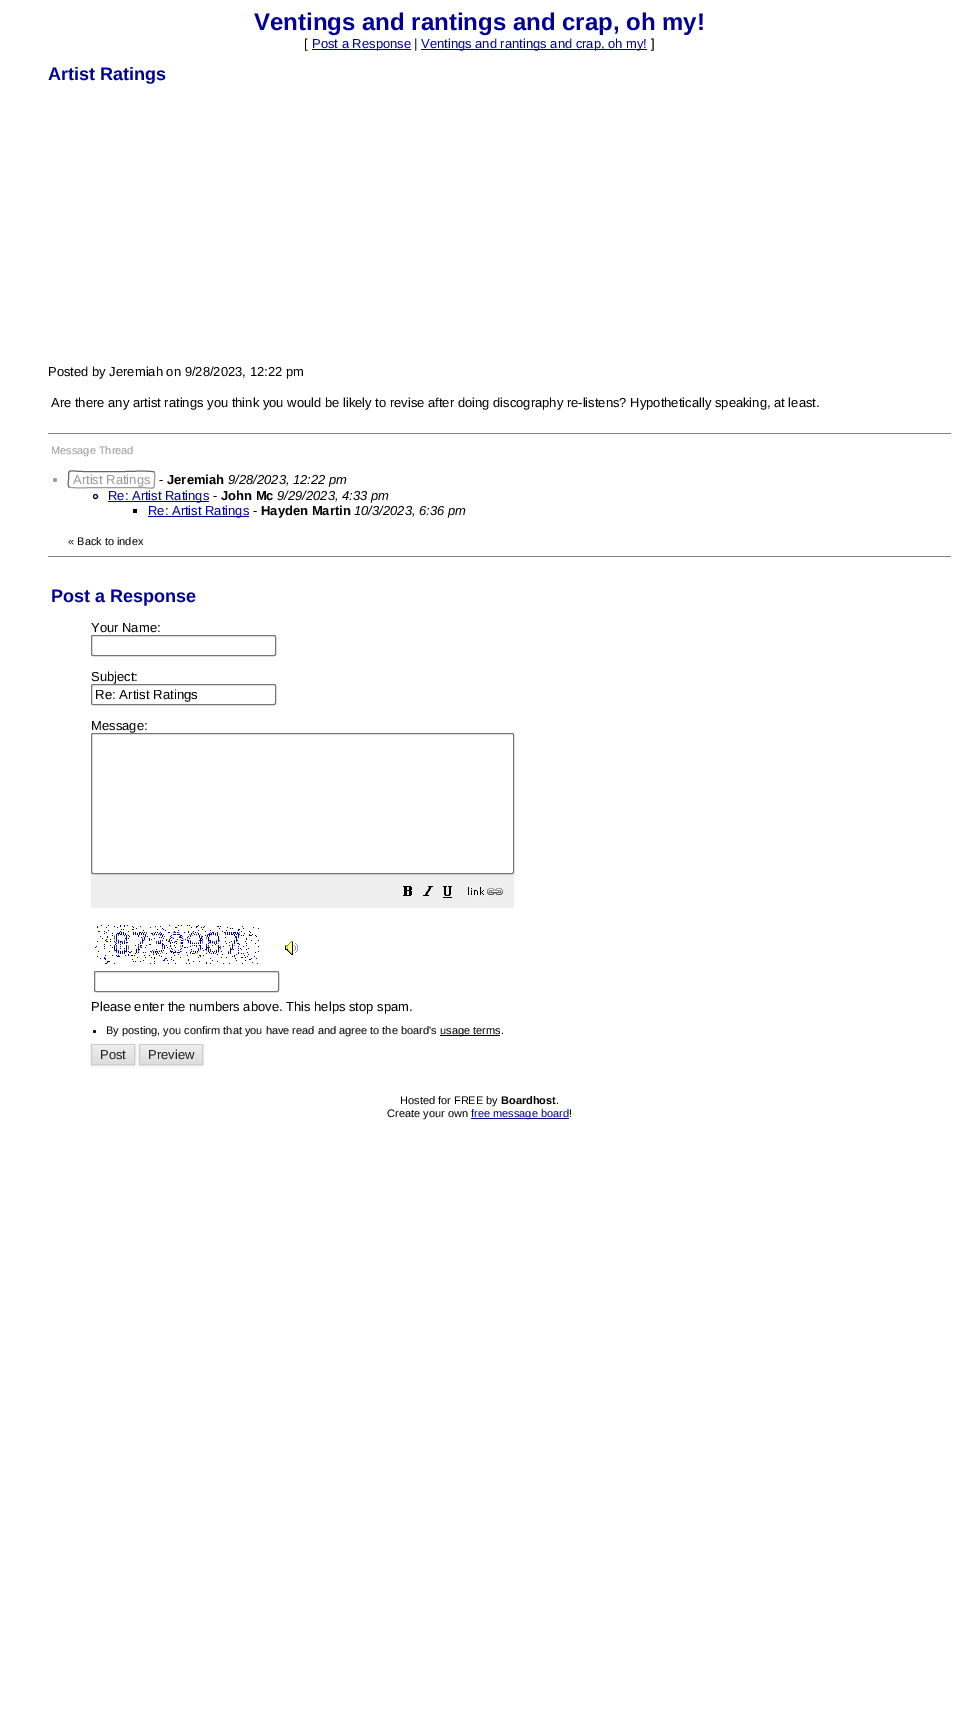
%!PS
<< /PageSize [959 1725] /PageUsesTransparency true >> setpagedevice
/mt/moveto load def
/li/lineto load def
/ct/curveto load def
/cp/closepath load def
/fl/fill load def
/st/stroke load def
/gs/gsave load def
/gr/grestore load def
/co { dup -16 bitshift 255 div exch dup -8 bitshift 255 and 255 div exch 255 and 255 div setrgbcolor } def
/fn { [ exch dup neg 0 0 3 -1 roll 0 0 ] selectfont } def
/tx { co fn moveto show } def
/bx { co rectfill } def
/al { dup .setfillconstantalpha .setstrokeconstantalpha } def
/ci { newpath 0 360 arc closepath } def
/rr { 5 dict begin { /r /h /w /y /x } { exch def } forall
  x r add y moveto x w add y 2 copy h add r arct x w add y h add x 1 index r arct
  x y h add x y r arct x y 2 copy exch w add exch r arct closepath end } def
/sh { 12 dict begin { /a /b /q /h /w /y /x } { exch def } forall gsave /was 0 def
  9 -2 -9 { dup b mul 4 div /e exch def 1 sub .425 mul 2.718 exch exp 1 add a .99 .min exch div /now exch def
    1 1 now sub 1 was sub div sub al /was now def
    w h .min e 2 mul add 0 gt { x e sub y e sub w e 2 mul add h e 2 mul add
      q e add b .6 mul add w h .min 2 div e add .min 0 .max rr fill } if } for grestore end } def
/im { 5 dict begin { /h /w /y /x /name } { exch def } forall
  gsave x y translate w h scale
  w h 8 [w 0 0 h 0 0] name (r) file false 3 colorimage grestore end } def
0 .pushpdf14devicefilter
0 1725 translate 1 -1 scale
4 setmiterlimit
0 0 959 1725 16#FFFFFF bx
312 49 99 1 16#000099 bx
421 49 226 1 16#000099 bx
48 433 903 1 16#808080 bx
16#999999 co
55 480 2 ci fl
154 472 mt 155.5 473 154.5 478 154.5 479.5 ct 154.5 491.5 155 487.5 139 487.5 ct 97.5 487.5 li 95.5 487.5 70.5 488.5 69 487 ct st
16#666666 co
69 487 mt 67.5 486 68.5 481 68.5 479.5 ct 68.5 467.5 68 471.5 84 471.5 ct 125.5 471.5 li 127.5 471.5 152.5 470.5 154 472 ct st
16#000000 co
95.5 496.5 2 ci st
108 501 101 1 16#000099 bx
133 509 4 4 16#000000 bx
148 516 101 1 16#000099 bx
48 556 903 1 16#808080 bx
16#767676 co
91.5 635.5 184 20 1.5 rr st
91.5 684.5 184 20 1.5 rr st
91 733 423 175 16#EEEEEE bx
16#FFFFFF co
91.5 733.5 422 140 1.5 rr gs fl gr
16#767676 co
st
(media/1.raw) 403 886 9 10 im
(media/2.raw) 423 886 10 10 im
(media/3.raw) 443 886 9 12 im
(media/4.raw) 468 883 36 16 im
(media/5.raw) 95 925 164 39 im
(media/6.raw) 285 941 13 14 im
94.5 971.5 184 20 1.5 rr st
16#000000 co
94.5 1031.5 1.5 ci fl
440 1035 60 1 16#000000 bx
91 1045 44 21 0 1.5 .1 sh
gs 92 1046 mt 134 1046 li 134 1064 li 92 1064 li cp clip newpath
<< /ShadingType 2 /ColorSpace /DeviceRGB /Coords [113 1045 113 1064] /Extend [true true] /Function << /FunctionType 2 /Domain [0 1] /C0 [.933 .933 .933] /C1 [.867 .867 .867] /N 1 >> >> shfill gr
92 1045 42 1 16#FAFAFA bx
16#CCCCCC co
91.5 1044.5 43 20 rectstroke
16#000000 co
139 1045 64 21 0 1.5 .1 sh
gs 140 1046 mt 202 1046 li 202 1064 li 140 1064 li cp clip newpath
<< /ShadingType 2 /ColorSpace /DeviceRGB /Coords [171 1045 171 1064] /Extend [true true] /Function << /FunctionType 2 /Domain [0 1] /C0 [.933 .933 .933] /C1 [.867 .867 .867] /N 1 >> >> shfill gr
140 1045 62 1 16#FAFAFA bx
16#CCCCCC co
139.5 1044.5 63 20 rectstroke
471 1118 98 1 16#000099 bx
(Ventings and rantings and crap, oh my!) 254 30 /LiberationSans-Bold 24 16#000099 tx
([) 304 48 /LiberationSans-Regular 13 16#000000 tx
(Post a Response) 312 48 /LiberationSans-Regular 13 16#000099 tx
(|) 414 48 /LiberationSans-Regular 13 16#000000 tx
(Ventings and rantings and crap, oh my!) 421 48 /LiberationSans-Regular 13 16#000099 tx
(]) 651 48 /LiberationSans-Regular 13 16#000000 tx
(Artist Ratings) 48 80 /LiberationSans-Bold 18 16#000099 tx
(Posted by Jeremiah on 9/28/2023, 12:22 pm) 48 376 /LiberationSans-Regular 13 16#000000 tx
(Are there any artist ratings you think you would be likely to revise after doing discography re-listens? Hypothetically speaking, at least.) 51 407 /LiberationSans-Regular 13 16#000000 tx
(Message Thread) 51 454 /LiberationSans-Regular 11 16#999999 tx
(Artist Ratings) 73 484 /LiberationSans-Regular 13 16#999999 tx
(-) 159 484 /LiberationSans-Regular 13 16#000000 tx
(Jeremiah) 167 484 /LiberationSans-Bold 13 16#000000 tx
(9/28/2023, 12:22 pm) 228 484 /LiberationSans-Italic 13 16#000000 tx
(Re: Artist Ratings) 108 500 /LiberationSans-Regular 13 16#000099 tx
(-) 213 500 /LiberationSans-Regular 13 16#000000 tx
(John Mc) 221 500 /LiberationSans-Bold 13 16#000000 tx
(9/29/2023, 4:33 pm) 277 500 /LiberationSans-Italic 13 16#000000 tx
(Re: Artist Ratings) 148 515 /LiberationSans-Regular 13 16#000099 tx
(-) 253 515 /LiberationSans-Regular 13 16#000000 tx
(Hayden Martin) 261 515 /LiberationSans-Bold 13 16#000000 tx
(10/3/2023, 6:36 pm) 354 515 /LiberationSans-Italic 13 16#000000 tx
(« Back to index) 68 545 /LiberationSans-Regular 11 16#000000 tx
(Post a Response) 51 602 /LiberationSans-Bold 18 16#000099 tx
(Your Name:) 91 632 /LiberationSans-Regular 13 16#000000 tx
(Subject:) 91 681 /LiberationSans-Regular 13 16#000000 tx
(Re: Artist Ratings) 95 699 /LiberationSans-Regular 13.25 16#000000 tx
(Message:) 91 730 /LiberationSans-Regular 13 16#000000 tx
(Please enter the numbers above. This helps stop spam.) 91 1011 /LiberationSans-Regular 13 16#000000 tx
(By posting, you confirm that you have read and agree to the board's) 106 1034 /LiberationSans-Regular 11 16#000000 tx
(usage terms.) 440 1034 /LiberationSans-Regular 11 16#000000 tx
(Post) 100 1059 /LiberationSans-Regular 13 16#202020 tx
(Preview) 148 1059 /LiberationSans-Regular 13 16#202020 tx
(Hosted for FREE by) 400 1104 /LiberationSans-Regular 11 16#000000 tx
(Boardhost) 501 1104 /LiberationSans-Bold 11 16#000000 tx
(.) 556 1104 /LiberationSans-Regular 11 16#000000 tx
(Create your own) 387 1117 /LiberationSans-Regular 11 16#000000 tx
(free message board) 471 1117 /LiberationSans-Regular 11 16#000099 tx
(!) 569 1117 /LiberationSans-Regular 11 16#000000 tx
.poppdf14devicefilter showpage
